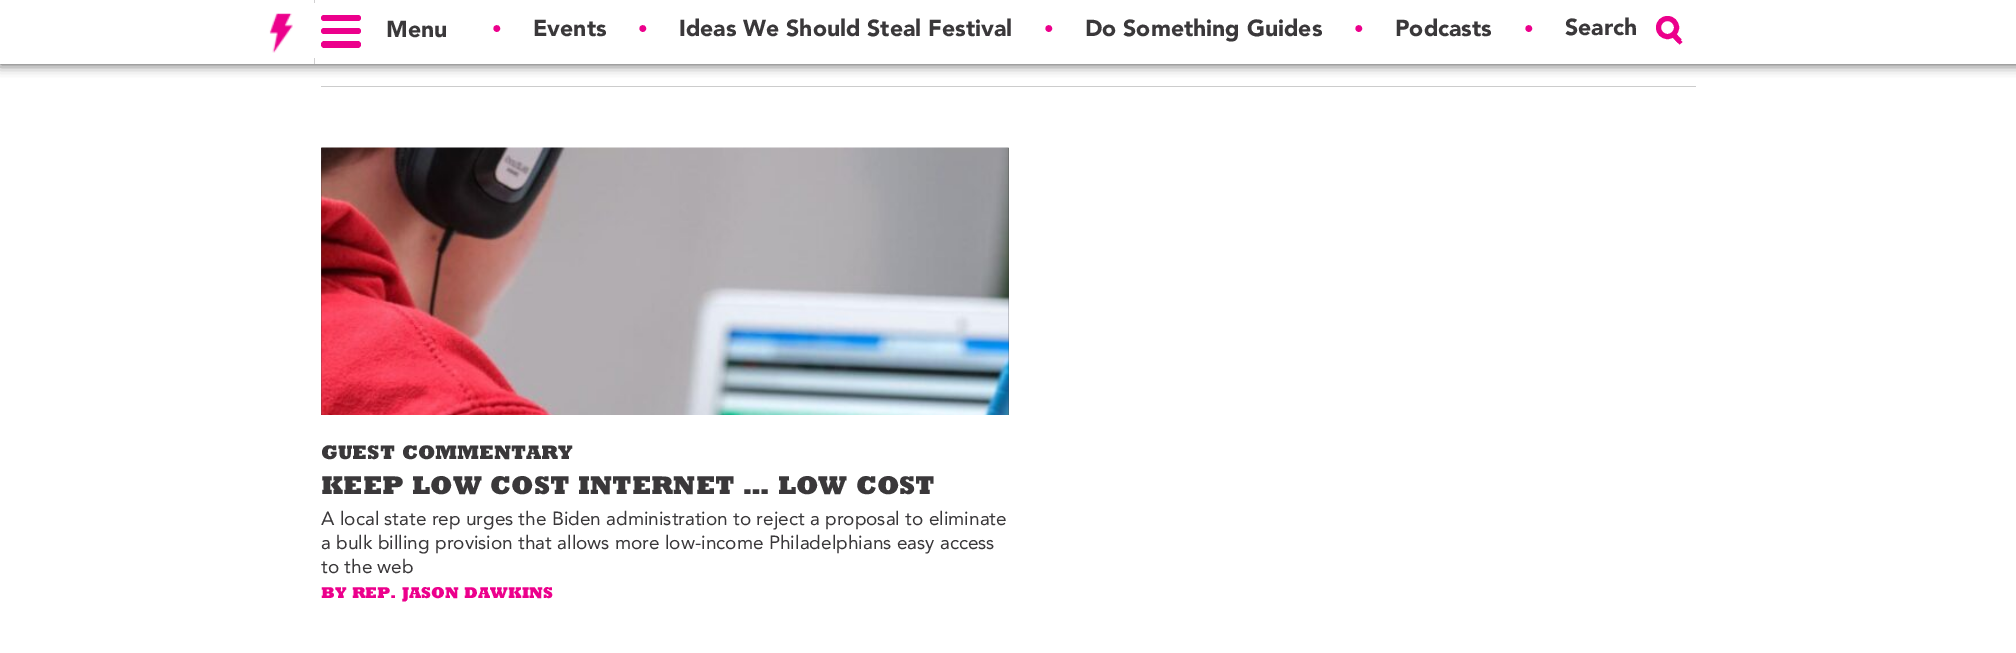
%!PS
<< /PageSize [2016 653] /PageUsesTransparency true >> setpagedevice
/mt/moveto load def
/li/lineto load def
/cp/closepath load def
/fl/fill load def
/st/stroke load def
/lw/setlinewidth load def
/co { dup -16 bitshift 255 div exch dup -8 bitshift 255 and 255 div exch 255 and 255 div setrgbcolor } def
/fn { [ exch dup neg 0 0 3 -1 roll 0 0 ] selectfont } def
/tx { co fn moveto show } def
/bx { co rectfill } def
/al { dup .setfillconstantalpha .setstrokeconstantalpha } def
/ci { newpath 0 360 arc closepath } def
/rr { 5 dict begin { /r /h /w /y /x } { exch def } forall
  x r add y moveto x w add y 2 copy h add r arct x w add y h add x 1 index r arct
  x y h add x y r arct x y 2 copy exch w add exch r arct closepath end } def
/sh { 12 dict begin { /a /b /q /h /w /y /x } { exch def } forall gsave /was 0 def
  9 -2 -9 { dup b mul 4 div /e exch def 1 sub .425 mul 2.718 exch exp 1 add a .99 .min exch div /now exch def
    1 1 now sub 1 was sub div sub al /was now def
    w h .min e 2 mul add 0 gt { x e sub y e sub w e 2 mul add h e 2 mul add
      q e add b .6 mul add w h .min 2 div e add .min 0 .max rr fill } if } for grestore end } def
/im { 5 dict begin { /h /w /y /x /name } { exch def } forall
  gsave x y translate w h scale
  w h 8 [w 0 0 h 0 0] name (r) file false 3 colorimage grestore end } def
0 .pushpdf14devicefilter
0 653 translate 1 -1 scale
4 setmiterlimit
0 0 2016 653 16#FFFFFF bx
16#000000 co
0 -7 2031 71 0 6 .75 sh
0 0 2016 64 16#FFFFFF bx
314 0 1 64 16#D1D0D1 bx
(media/1.raw) 269 13 24 40 im
314 3 1 55 16#FFFFFF bx
16#EC008C co
321 15 40 6 3 rr fl
321 28 40 6 3 rr fl
321 41 40 7 3.5 rr fl
5 lw
1667.5 27.5 9 ci st
1671 35.5 mt 1673.5 33 li 1682.5 42 li 1679.5 44.5 li cp fl
1671 35.5 mt 1674.5 32 li 1681.5 39.5 li 1678 43 li cp fl
321 86 1375 1 16#CCCCCC bx
(media/2.raw) 321 147 688 268 im
(Menu) 386 37 /Avenir-Black 23 16#3A383A tx
(●) 492 33 /LiberationSans-Regular 16 16#EC008C tx
(Events) 533 36 /Avenir-Black 23 16#3A383A tx
(●) 638 33 /LiberationSans-Regular 16 16#EC008C tx
(Ideas We Should Steal Festival) 679 36 /Avenir-Black 23 16#3A383A tx
(●) 1044 33 /LiberationSans-Regular 16 16#EC008C tx
(Do Something Guides) 1085 36 /Avenir-Black 23 16#3A383A tx
(●) 1354 33 /LiberationSans-Regular 16 16#EC008C tx
(Podcasts) 1395 36 /Avenir-Black 23 16#3A383A tx
(●) 1524 33 /LiberationSans-Regular 16 16#EC008C tx
(Search) 1565 35 /Avenir-Black 23 16#3A383A tx
(GUEST COMMENTARY) 321 459 /Rockwell-ExtraBold 20 16#3A383A tx
(KEEP LOW COST INTERNET … LOW COST) 321 494 /Rockwell-ExtraBold 26 16#3A383A tx
(A local state rep urges the Biden administration to reject a proposal to eliminate) 321 525 /Avenir-Regular 19 16#3A383A tx
(a bulk billing provision that allows more low-income Philadelphians easy access) 321 549 /Avenir-Regular 19 16#3A383A tx
(to the web) 321 573 /Avenir-Regular 19 16#3A383A tx
(BY REP. JASON DAWKINS) 321 598 /Rockwell-ExtraBold 16 16#EC008C tx
.poppdf14devicefilter showpage
